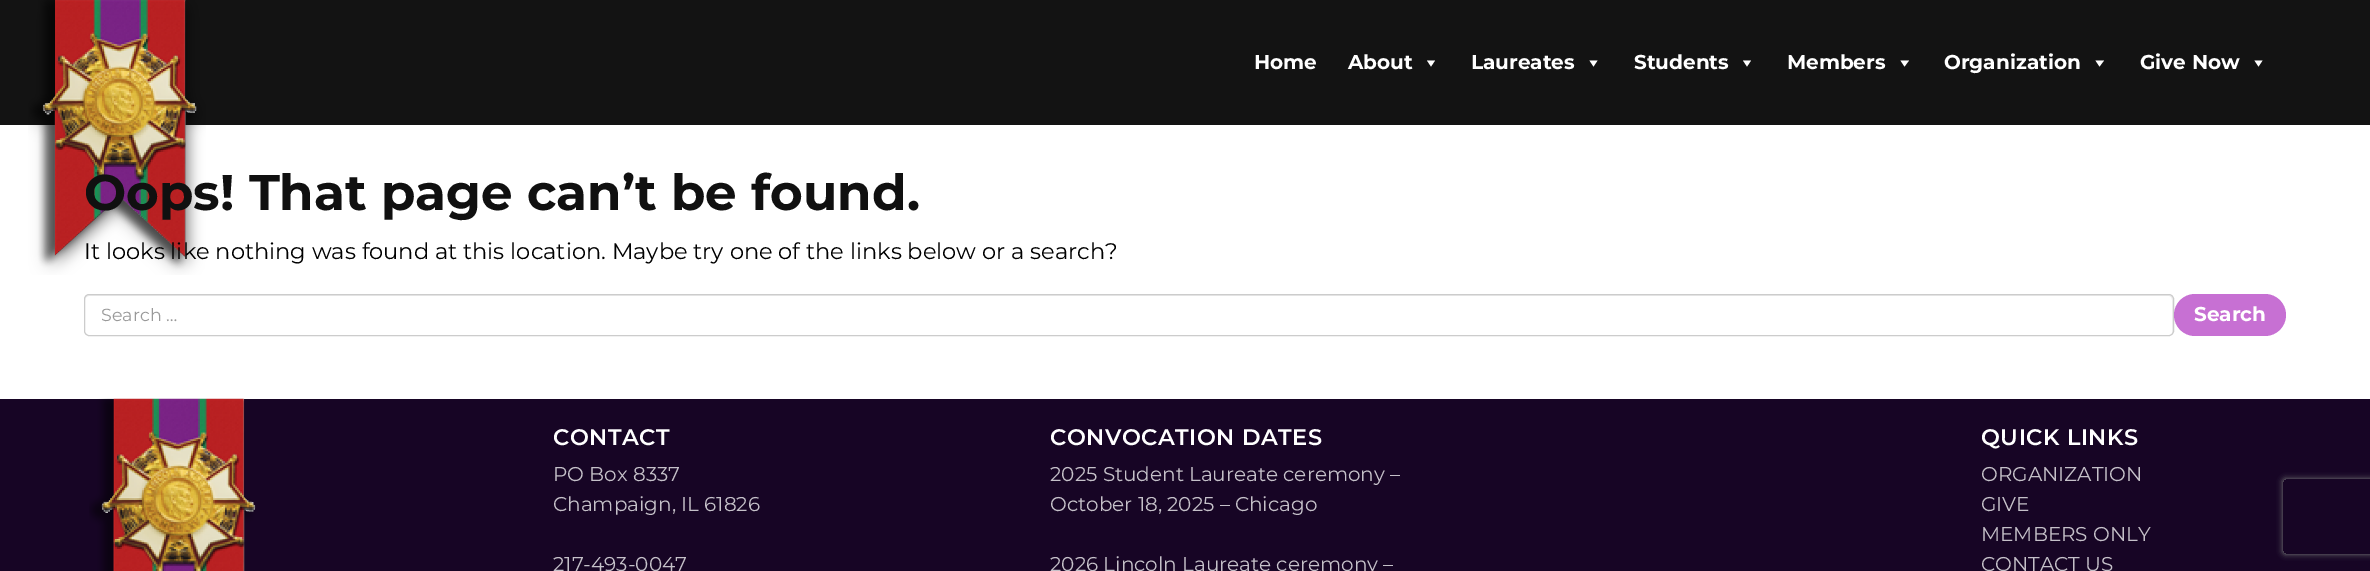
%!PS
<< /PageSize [2370 571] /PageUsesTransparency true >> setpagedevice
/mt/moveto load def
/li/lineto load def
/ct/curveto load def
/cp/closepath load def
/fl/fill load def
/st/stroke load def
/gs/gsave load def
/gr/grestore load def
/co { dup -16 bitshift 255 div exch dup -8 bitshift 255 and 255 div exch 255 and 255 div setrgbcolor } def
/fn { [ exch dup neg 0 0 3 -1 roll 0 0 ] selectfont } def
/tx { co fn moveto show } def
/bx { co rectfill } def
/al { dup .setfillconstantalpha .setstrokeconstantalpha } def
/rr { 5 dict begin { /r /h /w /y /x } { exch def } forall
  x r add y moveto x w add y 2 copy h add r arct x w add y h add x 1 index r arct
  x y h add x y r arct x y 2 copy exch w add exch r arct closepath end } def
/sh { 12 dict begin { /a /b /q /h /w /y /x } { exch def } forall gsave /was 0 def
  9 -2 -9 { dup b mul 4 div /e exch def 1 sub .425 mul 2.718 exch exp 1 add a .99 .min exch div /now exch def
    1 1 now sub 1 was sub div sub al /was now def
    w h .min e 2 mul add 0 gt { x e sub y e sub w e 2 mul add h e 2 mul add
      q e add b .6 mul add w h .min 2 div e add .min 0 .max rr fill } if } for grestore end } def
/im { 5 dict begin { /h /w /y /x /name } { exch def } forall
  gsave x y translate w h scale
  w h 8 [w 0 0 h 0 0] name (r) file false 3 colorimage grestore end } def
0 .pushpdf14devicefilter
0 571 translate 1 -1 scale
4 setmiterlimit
0 0 2370 571 16#FFFFFF bx
0 0 2370 125 16#131313 bx
(media/1.raw) 28 0 178 275 im
16#FFFFFF co
1435 60.5 mt 1431 66.5 li 1427 60.5 li cp fl
1597.5 60.5 mt 1593.5 66.5 li 1589.5 60.5 li cp fl
1751 60.5 mt 1747 66.5 li 1743 60.5 li cp fl
1909 60.5 mt 1904.5 66.5 li 1900.5 60.5 li cp fl
2104 60.5 mt 2099.5 66.5 li 2095.5 60.5 li cp fl
2262.5 60.5 mt 2258.5 66.5 li 2254.5 60.5 li cp fl
16#ECECEC co
89 296 mt 2169 296 li 2171 296 2172 298 2172 300 ct 2172 334 li 2173 333 2173 332 2173 331 ct 2173 299 li 2173 297 2171 295 2169 295 ct 89 295 li 87 295 85 297 85 299 ct 85 300 li 85 298 87 296 89 296 ct cp fl
16#CCCCCC co
84.5 294.5 2089 41 4.5 rr st
16#C770D3 co
2174 294 112 42 21 rr fl
0 399 2370 172 16#170525 bx
(media/2.raw) 89 398 167 173 im
gs
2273 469 mt 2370 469 li 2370 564 li 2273 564 li cp 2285.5 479 mt 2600.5 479 li 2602 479 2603 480 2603 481.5 ct 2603 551.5 li 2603 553 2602 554 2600.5 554 ct 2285.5 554 li 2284 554 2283 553 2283 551.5 ct 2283 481.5 li 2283 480 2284 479 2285.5 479 ct cp eoclip newpath
16#808080 co
2283 479 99 75 2.5 3 1 sh
gr
(Home) 1254 69 /Montserrat-Bold 20 16#FFFFFF tx
(About) 1348 69 /Montserrat-Bold 20 16#FFFFFF tx
(Laureates) 1471 69 /Montserrat-Bold 20 16#FFFFFF tx
(Students) 1634 69 /Montserrat-Bold 20 16#FFFFFF tx
(Members) 1787 69 /Montserrat-Bold 20 16#FFFFFF tx
(Organization) 1944 69 /Montserrat-Bold 20 16#FFFFFF tx
(Give Now) 2140 69 /Montserrat-Bold 20 16#FFFFFF tx
(Oops! That page can’t be found.) 84 210 /Montserrat-Bold 50 16#101010 tx
(It looks like nothing was found at this location. Maybe try one of the links below or a search?) 84 259 /Montserrat-Regular 22.5 16#000000 tx
(Search …) 101 321 /Montserrat-Regular 17.5 16#999999 tx
(Search) 2194 321 /Montserrat-Bold 20 16#FFFFFF tx
/Montserrat-SemiBold 22.5 fn
553 445 mt .5 0 (CONTACT) ashow
(PO Box 8337) 553 481 /Montserrat-Regular 20 16#C5C1C9 tx
(Champaign, IL 61826) 553 511 /Montserrat-Regular 20 16#C5C1C9 tx
(217-493-0047) 553 571 /Montserrat-Regular 20 16#C5C1C9 tx
/Montserrat-SemiBold 22.5 fn
16#FFFFFF co
1050 445 mt .5 0 (CONVOCATION DATES) ashow
(2025 Student Laureate ceremony –) 1050 481 /Montserrat-Regular 20 16#C5C1C9 tx
(October 18, 2025 – Chicago) 1050 511 /Montserrat-Regular 20 16#C5C1C9 tx
(2026 Lincoln Laureate ceremony –) 1050 571 /Montserrat-Regular 20 16#C5C1C9 tx
/Montserrat-SemiBold 22.5 fn
16#FFFFFF co
1981 445 mt .5 0 (QUICK LINKS) ashow
(ORGANIZATION) 1981 481 /Montserrat-Regular 20 16#C5C1C9 tx
(GIVE) 1981 511 /Montserrat-Regular 20 16#C5C1C9 tx
(MEMBERS ONLY) 1981 541 /Montserrat-Regular 20 16#C5C1C9 tx
(CONTACT US) 1981 571 /Montserrat-Regular 20 16#C5C1C9 tx
.poppdf14devicefilter showpage
